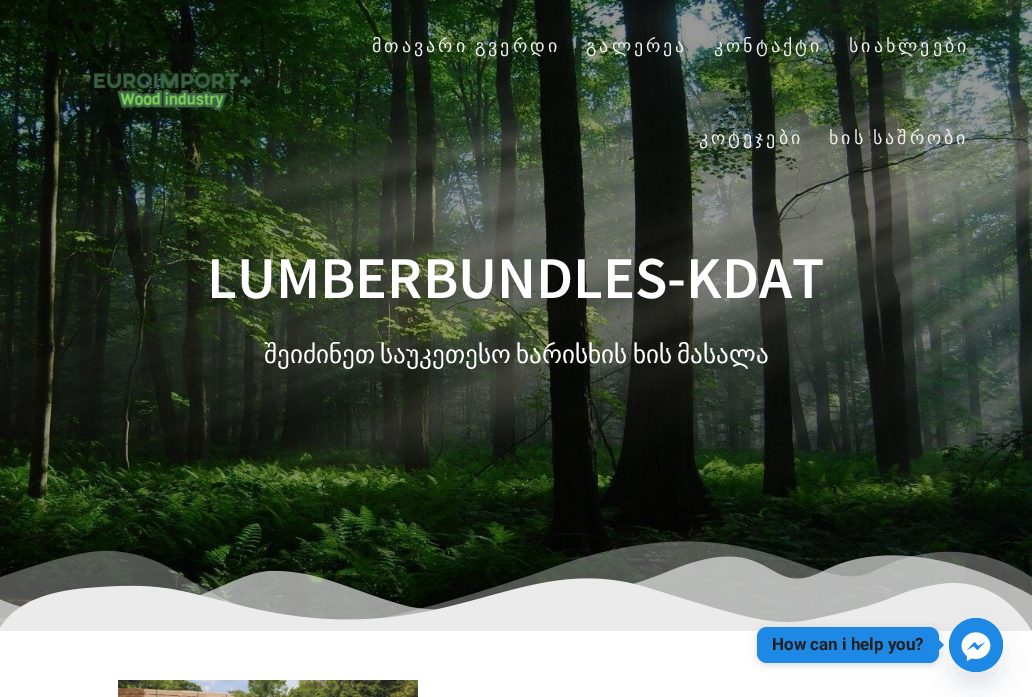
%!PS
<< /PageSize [1032 697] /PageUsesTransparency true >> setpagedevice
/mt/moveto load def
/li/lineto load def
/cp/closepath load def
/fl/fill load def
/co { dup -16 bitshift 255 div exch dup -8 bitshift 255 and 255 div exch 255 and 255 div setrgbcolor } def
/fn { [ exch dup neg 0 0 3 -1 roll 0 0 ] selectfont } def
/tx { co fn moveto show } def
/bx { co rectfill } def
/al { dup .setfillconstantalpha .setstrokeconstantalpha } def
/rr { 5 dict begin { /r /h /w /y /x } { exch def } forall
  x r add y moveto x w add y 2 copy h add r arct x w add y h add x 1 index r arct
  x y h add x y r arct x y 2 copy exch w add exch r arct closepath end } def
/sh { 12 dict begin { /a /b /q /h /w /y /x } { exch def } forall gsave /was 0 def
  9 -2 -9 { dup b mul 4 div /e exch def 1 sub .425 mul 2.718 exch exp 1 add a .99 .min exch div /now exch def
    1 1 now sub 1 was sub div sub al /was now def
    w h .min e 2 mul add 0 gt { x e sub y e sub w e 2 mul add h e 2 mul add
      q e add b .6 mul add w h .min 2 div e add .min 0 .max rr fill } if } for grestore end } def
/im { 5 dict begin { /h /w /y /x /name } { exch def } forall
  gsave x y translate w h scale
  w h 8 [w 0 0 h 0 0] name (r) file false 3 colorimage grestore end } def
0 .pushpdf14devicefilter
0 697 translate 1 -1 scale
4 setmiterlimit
0 0 1032 697 16#FFFFFF bx
(media/2.raw) 0 0 1032 630 im
(media/1.raw) 93 72 159 40 im
(media/3.raw) 0 541 1032 90 im
(media/4.raw) 118 680 300 17 im
16#49687E co
949 634 54 54 27 12 .16 sh
(media/5.raw) 949 618 54 54 im
16#000000 co
757 629 182 36 10 4 .15 sh
16#1E88E5 co
757 627 182 36 10 rr fl
939 650 mt 939 640 li 944 645 li cp fl
/DejaVuSans-Regular 18 fn
16#EDEDED co
372 52 mt -2 0 32 3 0 (მთავარი გვერდი) awidthshow
586 52 mt 3 0 (გალერეა) ashow
714 52 mt 3 0 (კონტაქტი) ashow
849 52 mt 3 0 (სიახლეები) ashow
699 144 mt 3 0 (კოტეჯები) ashow
829 144 mt -2 0 32 3 0 (ხის საშრობი) awidthshow
(LUMBERBUNDLES-KDAT) 207 298 /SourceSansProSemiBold-SemiBold 59.4 16#FFFFFF tx
/DejaVuSans-Regular 25.2 fn
264 363 mt -3 0 32 (შეიძინეთ საუკეთესო ხარისხის ხის მასალა) widthshow
(How can i help you?) 772 650 /Roboto-Bold 17 16#202020 tx
.poppdf14devicefilter showpage
